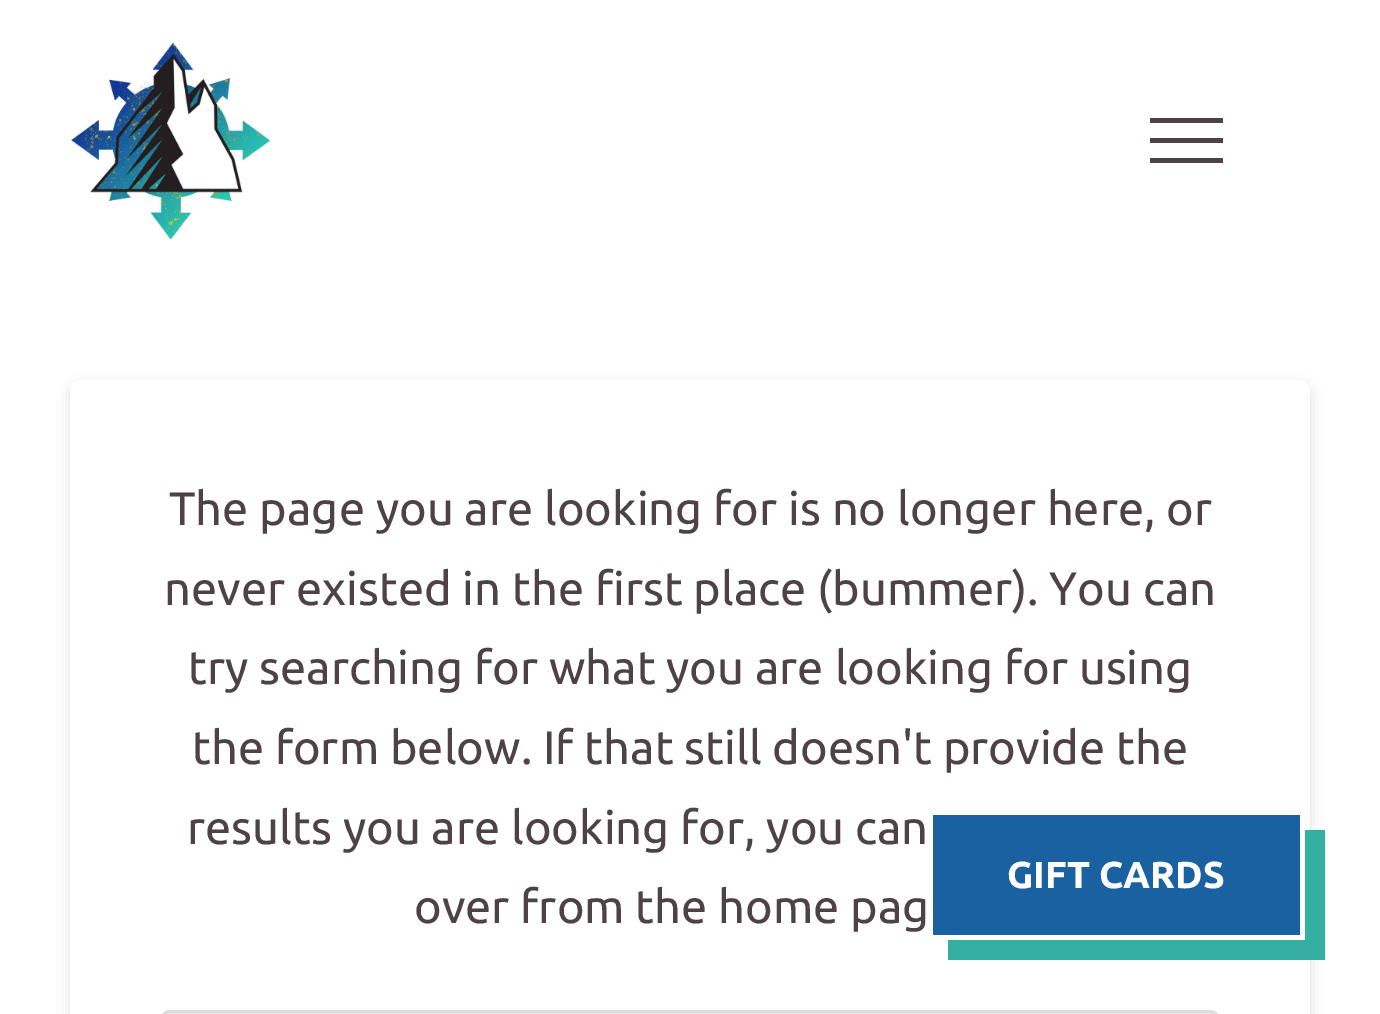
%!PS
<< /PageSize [1380 1014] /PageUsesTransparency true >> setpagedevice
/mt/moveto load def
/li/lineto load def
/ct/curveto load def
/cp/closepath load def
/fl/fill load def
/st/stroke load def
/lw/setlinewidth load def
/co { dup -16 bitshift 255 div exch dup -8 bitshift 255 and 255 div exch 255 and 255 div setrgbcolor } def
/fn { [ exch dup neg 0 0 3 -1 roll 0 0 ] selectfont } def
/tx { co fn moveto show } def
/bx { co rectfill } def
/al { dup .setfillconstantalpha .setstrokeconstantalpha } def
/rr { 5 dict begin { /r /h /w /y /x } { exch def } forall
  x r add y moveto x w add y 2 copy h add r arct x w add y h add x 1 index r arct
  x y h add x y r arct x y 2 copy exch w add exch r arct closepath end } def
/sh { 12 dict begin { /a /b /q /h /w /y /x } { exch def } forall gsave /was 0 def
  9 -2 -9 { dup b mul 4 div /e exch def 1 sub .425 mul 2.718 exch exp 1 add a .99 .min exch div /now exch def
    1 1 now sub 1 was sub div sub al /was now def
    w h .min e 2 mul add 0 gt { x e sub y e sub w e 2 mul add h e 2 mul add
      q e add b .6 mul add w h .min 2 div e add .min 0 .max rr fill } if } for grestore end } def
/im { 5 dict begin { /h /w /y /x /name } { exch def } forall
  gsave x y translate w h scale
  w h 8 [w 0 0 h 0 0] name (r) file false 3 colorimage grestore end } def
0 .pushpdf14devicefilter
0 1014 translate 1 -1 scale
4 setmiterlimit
0 0 1380 1014 16#FFFFFF bx
(media/1.raw) 71 42 199 198 im
1150 118 73 5 16#4E4246 bx
1150 138 73 5 16#4E4246 bx
1150 158 73 5 16#4E4246 bx
16#000000 co
70 385 1240 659 10 6.5 .13 sh
16#FFFFFF co
70 380 1240 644 10 rr fl
16#ECECEC co
170 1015 mt 1210 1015 li 1214 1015 1218 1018 1218 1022 ct 1218 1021 li 1218 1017 1214 1013 1210 1013 ct 171 1013 li 168 1013 165 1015 164 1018 ct 165 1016 168 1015 170 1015 ct cp fl
16#DDDDDD co
3 lw
161.5 1011.5 1057 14 8.5 rr st
16#34AFA1 co
948 940 mt 948 960 li 1325 960 li 1325 830 li 1305 830 li 1305 940 li cp fl
933 815 367 120 16#1961A0 bx
(The page you are looking for is no longer here, or) 169 525 /Ubuntu-Regular 46.9 16#4E4246 tx
(never existed in the first place \(bummer\). You can) 164 605 /Ubuntu-Regular 46.9 16#4E4246 tx
(try searching for what you are looking for using) 188 684 /Ubuntu-Regular 46.9 16#4E4246 tx
(the form below. If that still doesn't provide the) 192 764 /Ubuntu-Regular 46.9 16#4E4246 tx
(results you are looking for, you can) 187 844 /Ubuntu-Regular 46.9 16#4E4246 tx
(over from the home pag) 414 923 /Ubuntu-Regular 46.9 16#4E4246 tx
(GIFT CARDS) 1007 888 /Ubuntu-Bold 37.5 16#FFFFFF tx
.poppdf14devicefilter showpage
